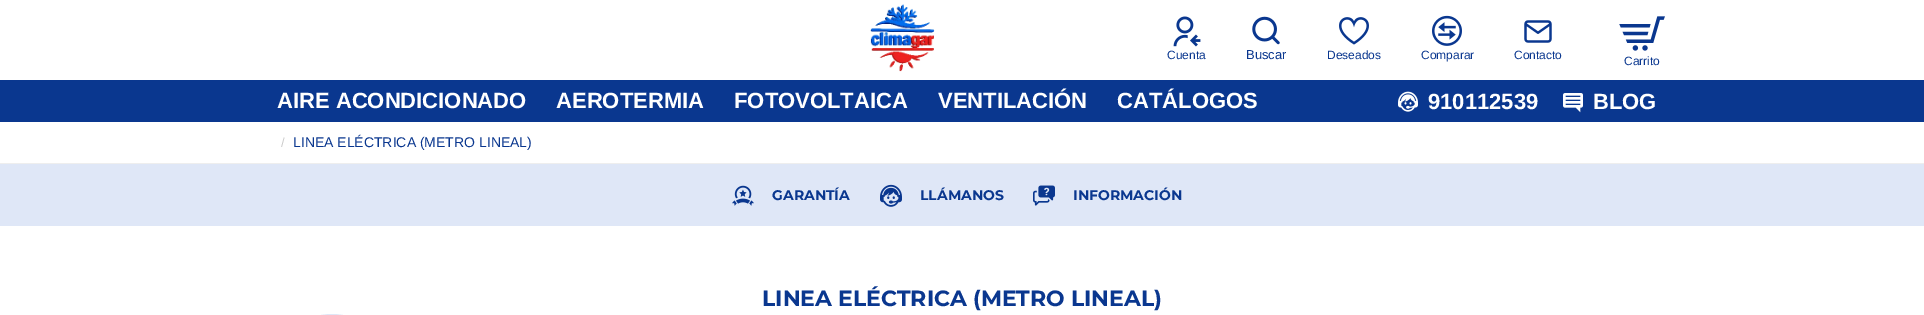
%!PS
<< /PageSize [1924 315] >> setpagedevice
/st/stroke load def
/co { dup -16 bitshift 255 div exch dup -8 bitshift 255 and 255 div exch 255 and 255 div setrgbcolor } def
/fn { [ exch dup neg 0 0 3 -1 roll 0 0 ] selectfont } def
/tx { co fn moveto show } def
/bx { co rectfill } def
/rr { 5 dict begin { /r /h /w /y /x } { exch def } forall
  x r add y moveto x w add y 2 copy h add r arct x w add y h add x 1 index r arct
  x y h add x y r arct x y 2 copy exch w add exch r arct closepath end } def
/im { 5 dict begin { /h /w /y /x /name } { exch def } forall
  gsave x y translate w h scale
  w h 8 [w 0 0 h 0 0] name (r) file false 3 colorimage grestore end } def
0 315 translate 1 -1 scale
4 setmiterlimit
0 0 1924 315 16#FFFFFF bx
(media/1.raw) 870 4 65 68 im
(media/2.raw) 1173 16 28 31 im
(media/3.raw) 1252 16 28 29 im
(media/4.raw) 1339 17 30 28 im
(media/5.raw) 1432 15 30 31 im
(media/6.raw) 1524 20 28 23 im
(media/7.raw) 1619 16 46 35 im
0 80 1924 42 16#0A378F bx
(media/8.raw) 1398 91 20 21 im
(media/9.raw) 1563 93 20 20 im
0 163 1924 1 16#EEEEEE bx
0 164 1924 62 16#DFE7F7 bx
(media/10.raw) 732 185 22 21 im
(media/11.raw) 880 184 22 23 im
(media/12.raw) 1033 185 22 21 im
262.5 314.5 139 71 69.5 rr st
(Cuenta) 1167 59 /LiberationSans-Regular 12 16#0A378F tx
(Buscar) 1246 59 /LiberationSans-Regular 13 16#0A378F tx
(Deseados) 1327 59 /LiberationSans-Regular 12 16#0A378F tx
(Comparar) 1421 59 /LiberationSans-Regular 12 16#0A378F tx
(Contacto) 1514 59 /LiberationSans-Regular 12 16#0A378F tx
(Carrito) 1624 65 /LiberationSans-Regular 12 16#0A378F tx
(AIRE ACONDICIONADO) 277 108 /LiberationSans-Bold 22 16#FFFFFF tx
(AEROTERMIA) 556 108 /LiberationSans-Bold 22 16#FFFFFF tx
(FOTOVOLTAICA) 734 108 /LiberationSans-Bold 22 16#FFFFFF tx
(VENTILACIÓN) 938 108 /LiberationSans-Bold 22 16#FFFFFF tx
(CATÁLOGOS) 1117 108 /LiberationSans-Bold 22 16#FFFFFF tx
(910112539) 1428 109 /LiberationSans-Bold 22 16#FFFFFF tx
(BLOG) 1593 109 /LiberationSans-Bold 22 16#FFFFFF tx
(/) 281 147 /LiberationSans-Regular 13 16#CCCCCC tx
(LINEA ELÉCTRICA \(METRO LINEAL\)) 293 147 /LiberationSans-Regular 14 16#0A378F tx
(GARANTÍA) 772 200 /Montserrat-Thin 14 16#0A378F tx
(LLÁMANOS) 920 200 /Montserrat-Thin 14 16#0A378F tx
(INFORMACIÓN) 1073 200 /Montserrat-Thin 14 16#0A378F tx
(LINEA ELÉCTRICA \(METRO LINEAL\)) 762 306 /Montserrat-Thin 22 16#0A378F tx
showpage
